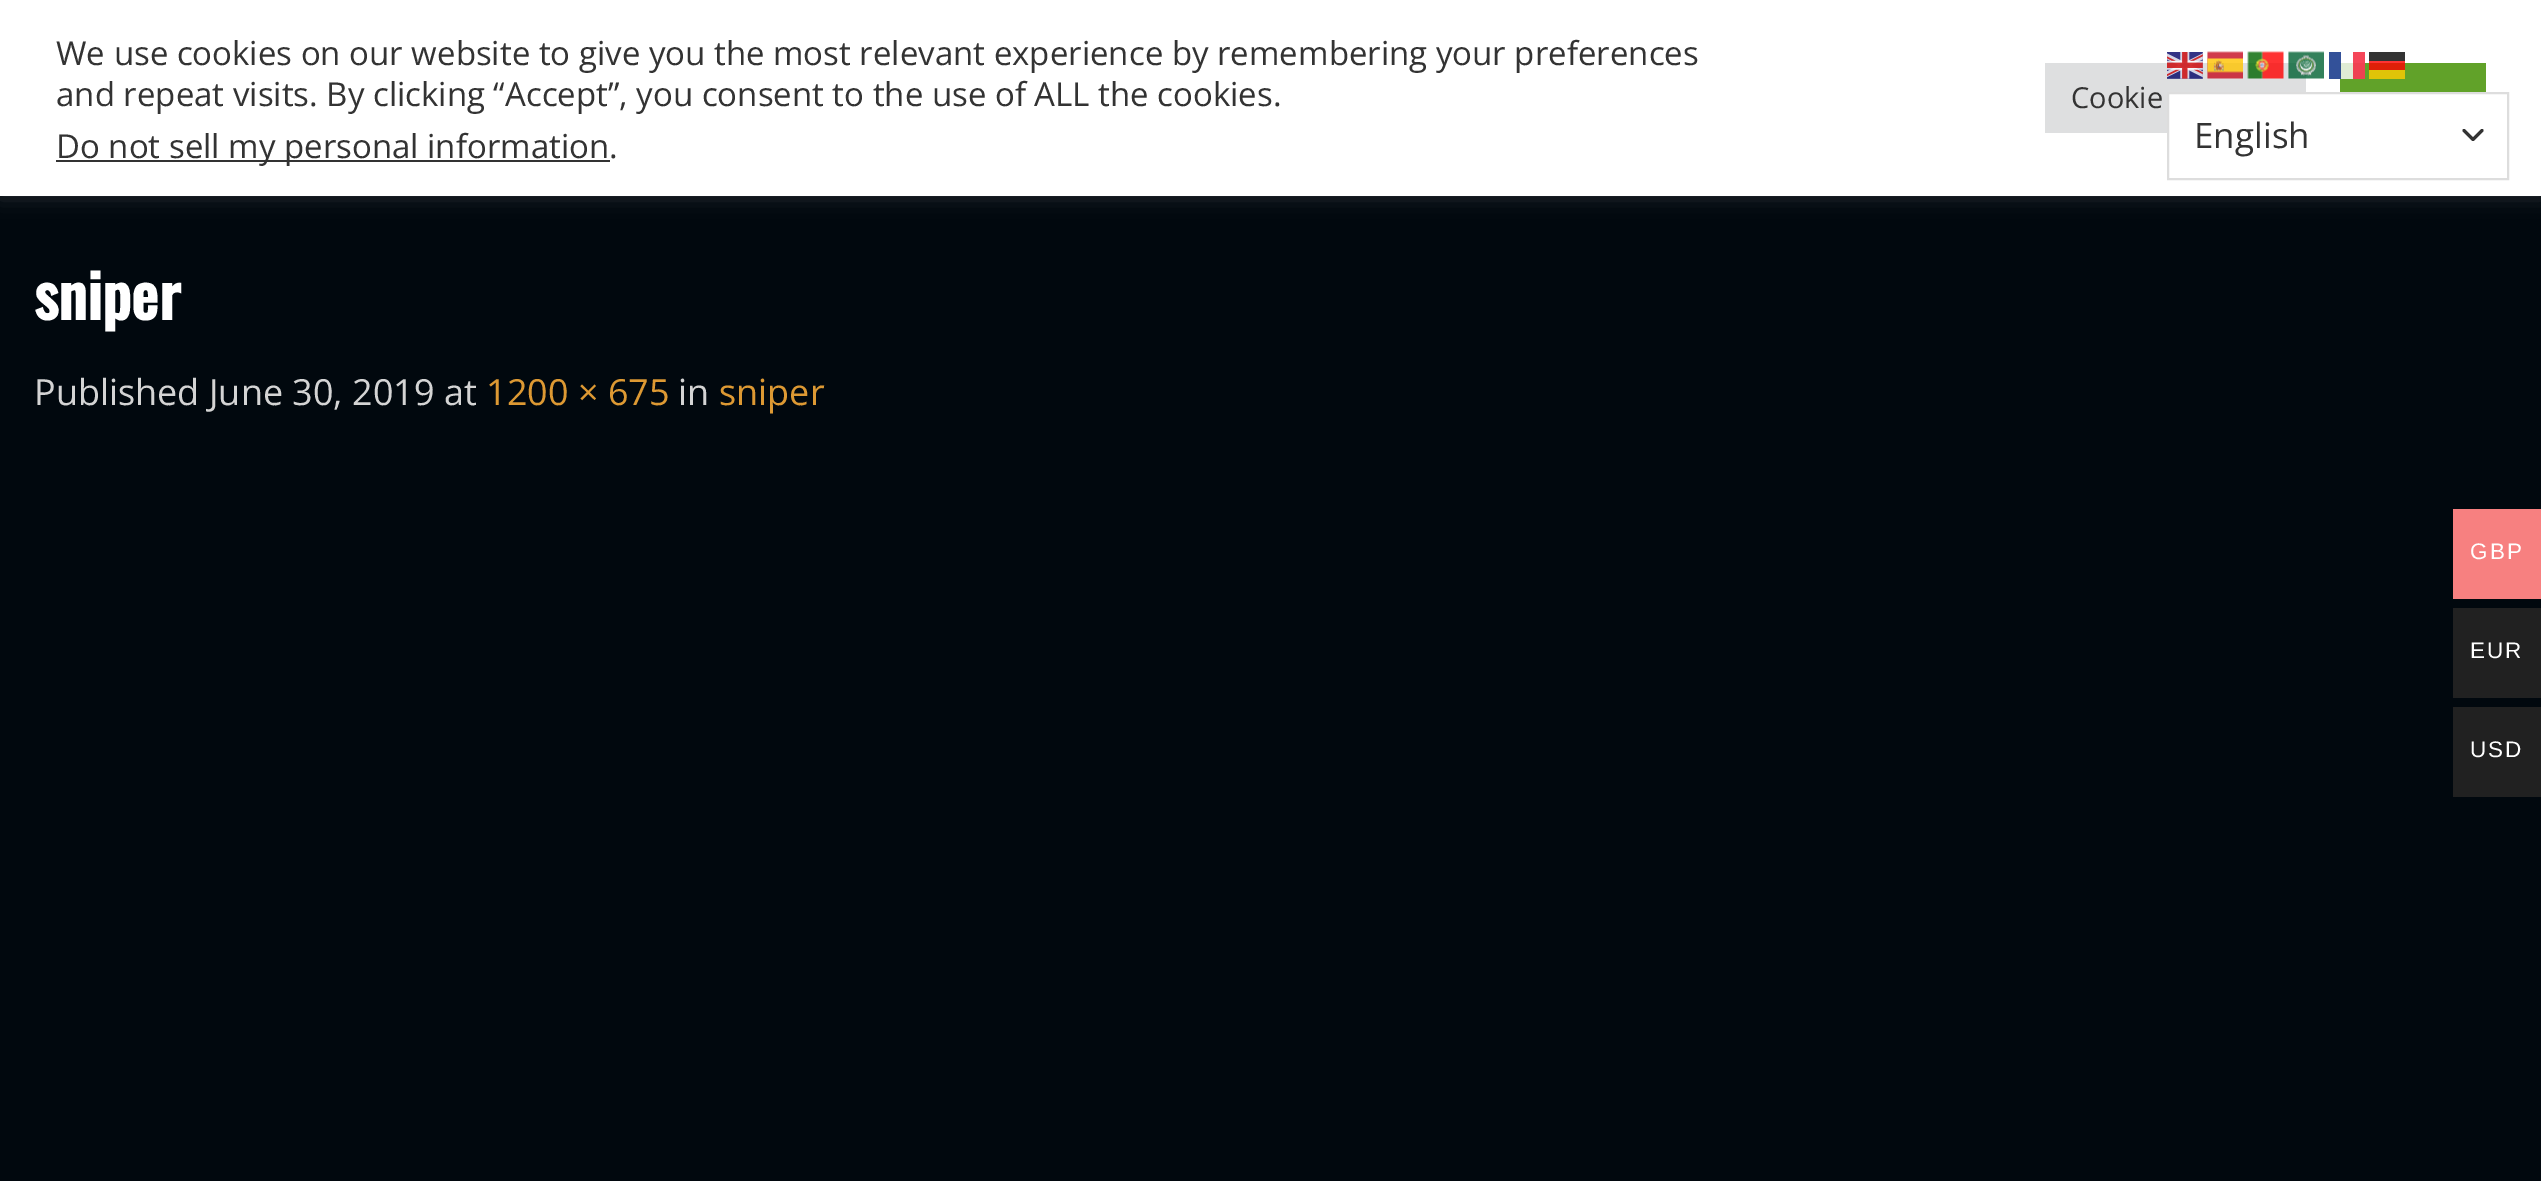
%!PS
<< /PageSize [2541 1181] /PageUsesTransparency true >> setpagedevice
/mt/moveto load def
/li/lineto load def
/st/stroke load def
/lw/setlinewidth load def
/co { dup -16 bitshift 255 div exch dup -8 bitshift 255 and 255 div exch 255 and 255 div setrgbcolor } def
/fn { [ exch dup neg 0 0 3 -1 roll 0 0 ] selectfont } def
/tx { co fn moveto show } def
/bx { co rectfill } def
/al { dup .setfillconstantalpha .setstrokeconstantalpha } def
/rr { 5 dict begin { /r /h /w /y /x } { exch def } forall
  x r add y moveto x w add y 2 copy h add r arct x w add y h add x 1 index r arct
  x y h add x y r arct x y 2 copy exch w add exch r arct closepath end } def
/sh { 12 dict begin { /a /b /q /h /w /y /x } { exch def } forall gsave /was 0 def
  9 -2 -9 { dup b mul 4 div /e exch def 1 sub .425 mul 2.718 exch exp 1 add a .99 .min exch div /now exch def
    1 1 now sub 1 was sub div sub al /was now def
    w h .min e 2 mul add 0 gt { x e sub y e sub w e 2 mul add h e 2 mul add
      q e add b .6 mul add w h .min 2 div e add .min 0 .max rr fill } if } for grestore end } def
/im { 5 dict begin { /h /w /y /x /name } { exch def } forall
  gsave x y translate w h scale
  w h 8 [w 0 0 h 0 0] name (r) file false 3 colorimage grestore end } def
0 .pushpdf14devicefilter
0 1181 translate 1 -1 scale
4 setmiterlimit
0 0 2541 1181 16#01080E bx
16#ACABAB co
0 -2 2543 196 0 11 .3 sh
0 0 2541 196 16#FFFFFF bx
2369 61 36 2 16#FF3333 bx
56 160 554 2 16#333333 bx
2340 63 146 29 16#61A229 bx
2369 63 36 7 16#DF2008 bx
2045 63 261 70 16#DEDFE0 bx
(media/1.raw) 2167 52 36 27 im
(media/2.raw) 2207 51 36 28 im
(media/3.raw) 2247 51 37 28 im
(media/4.raw) 2288 51 36 28 im
0.8 al
2340 63 25 16 16#FFFFFF bx
2329 52 12 27 16#00267F bx
2353 52 12 27 16#F31830 bx
1 al
2369 52 36 9 16#333333 bx
2369 70 36 9 16#DFC408 bx
2169 94 137 39 16#FFFFFF bx
16#333333 co
3 lw
1 setlinecap
1 setlinejoin
2464 130.5 mt 2473 139.5 li 2482 130.5 li st
16#DDDDDD co
2 lw
0 setlinecap
0 setlinejoin
2168 93 340 86 rectstroke
2453 509 88 90 16#F78080 bx
2453 608 88 90 16#212121 bx
2453 707 88 90 16#212121 bx
(We use cookies on our website to give you the most relevant experience by remembering your preferences) 56 65 /OpenSans-Regular 33 16#333333 tx
(and repeat visits. By clicking “Accept”, you consent to the use of ALL the cookies.) 56 106 /OpenSans-Regular 33 16#333333 tx
(Do not sell my personal information) 56 158 /OpenSans-Regular 33 16#333333 tx
(.) 609 158 /OpenSans-Regular 33 16#333333 tx
(Cookie) 2071 108 /OpenSans-Regular 29 16#333333 tx
(English) 2194 148 /OpenSans-Regular 35 16#333333 tx
(sniper) 34 320 /Oswald-Bold 61 16#FFFFFF tx
(Published June 30, 2019 at) 34 405 /OpenSans-Regular 36 16#D4D4D4 tx
(1200 × 675) 486 405 /OpenSans-Regular 36 16#DD9933 tx
(in) 678 405 /OpenSans-Regular 36 16#D4D4D4 tx
(sniper) 719 405 /OpenSans-Regular 36 16#DD9933 tx
/LiberationSans-Regular 22.5 fn
16#FFFFFF co
2470 559 mt 2 0 (GBP) ashow
2470 658 mt 2 0 (EUR) ashow
2470 757 mt 2 0 (USD) ashow
.poppdf14devicefilter showpage
